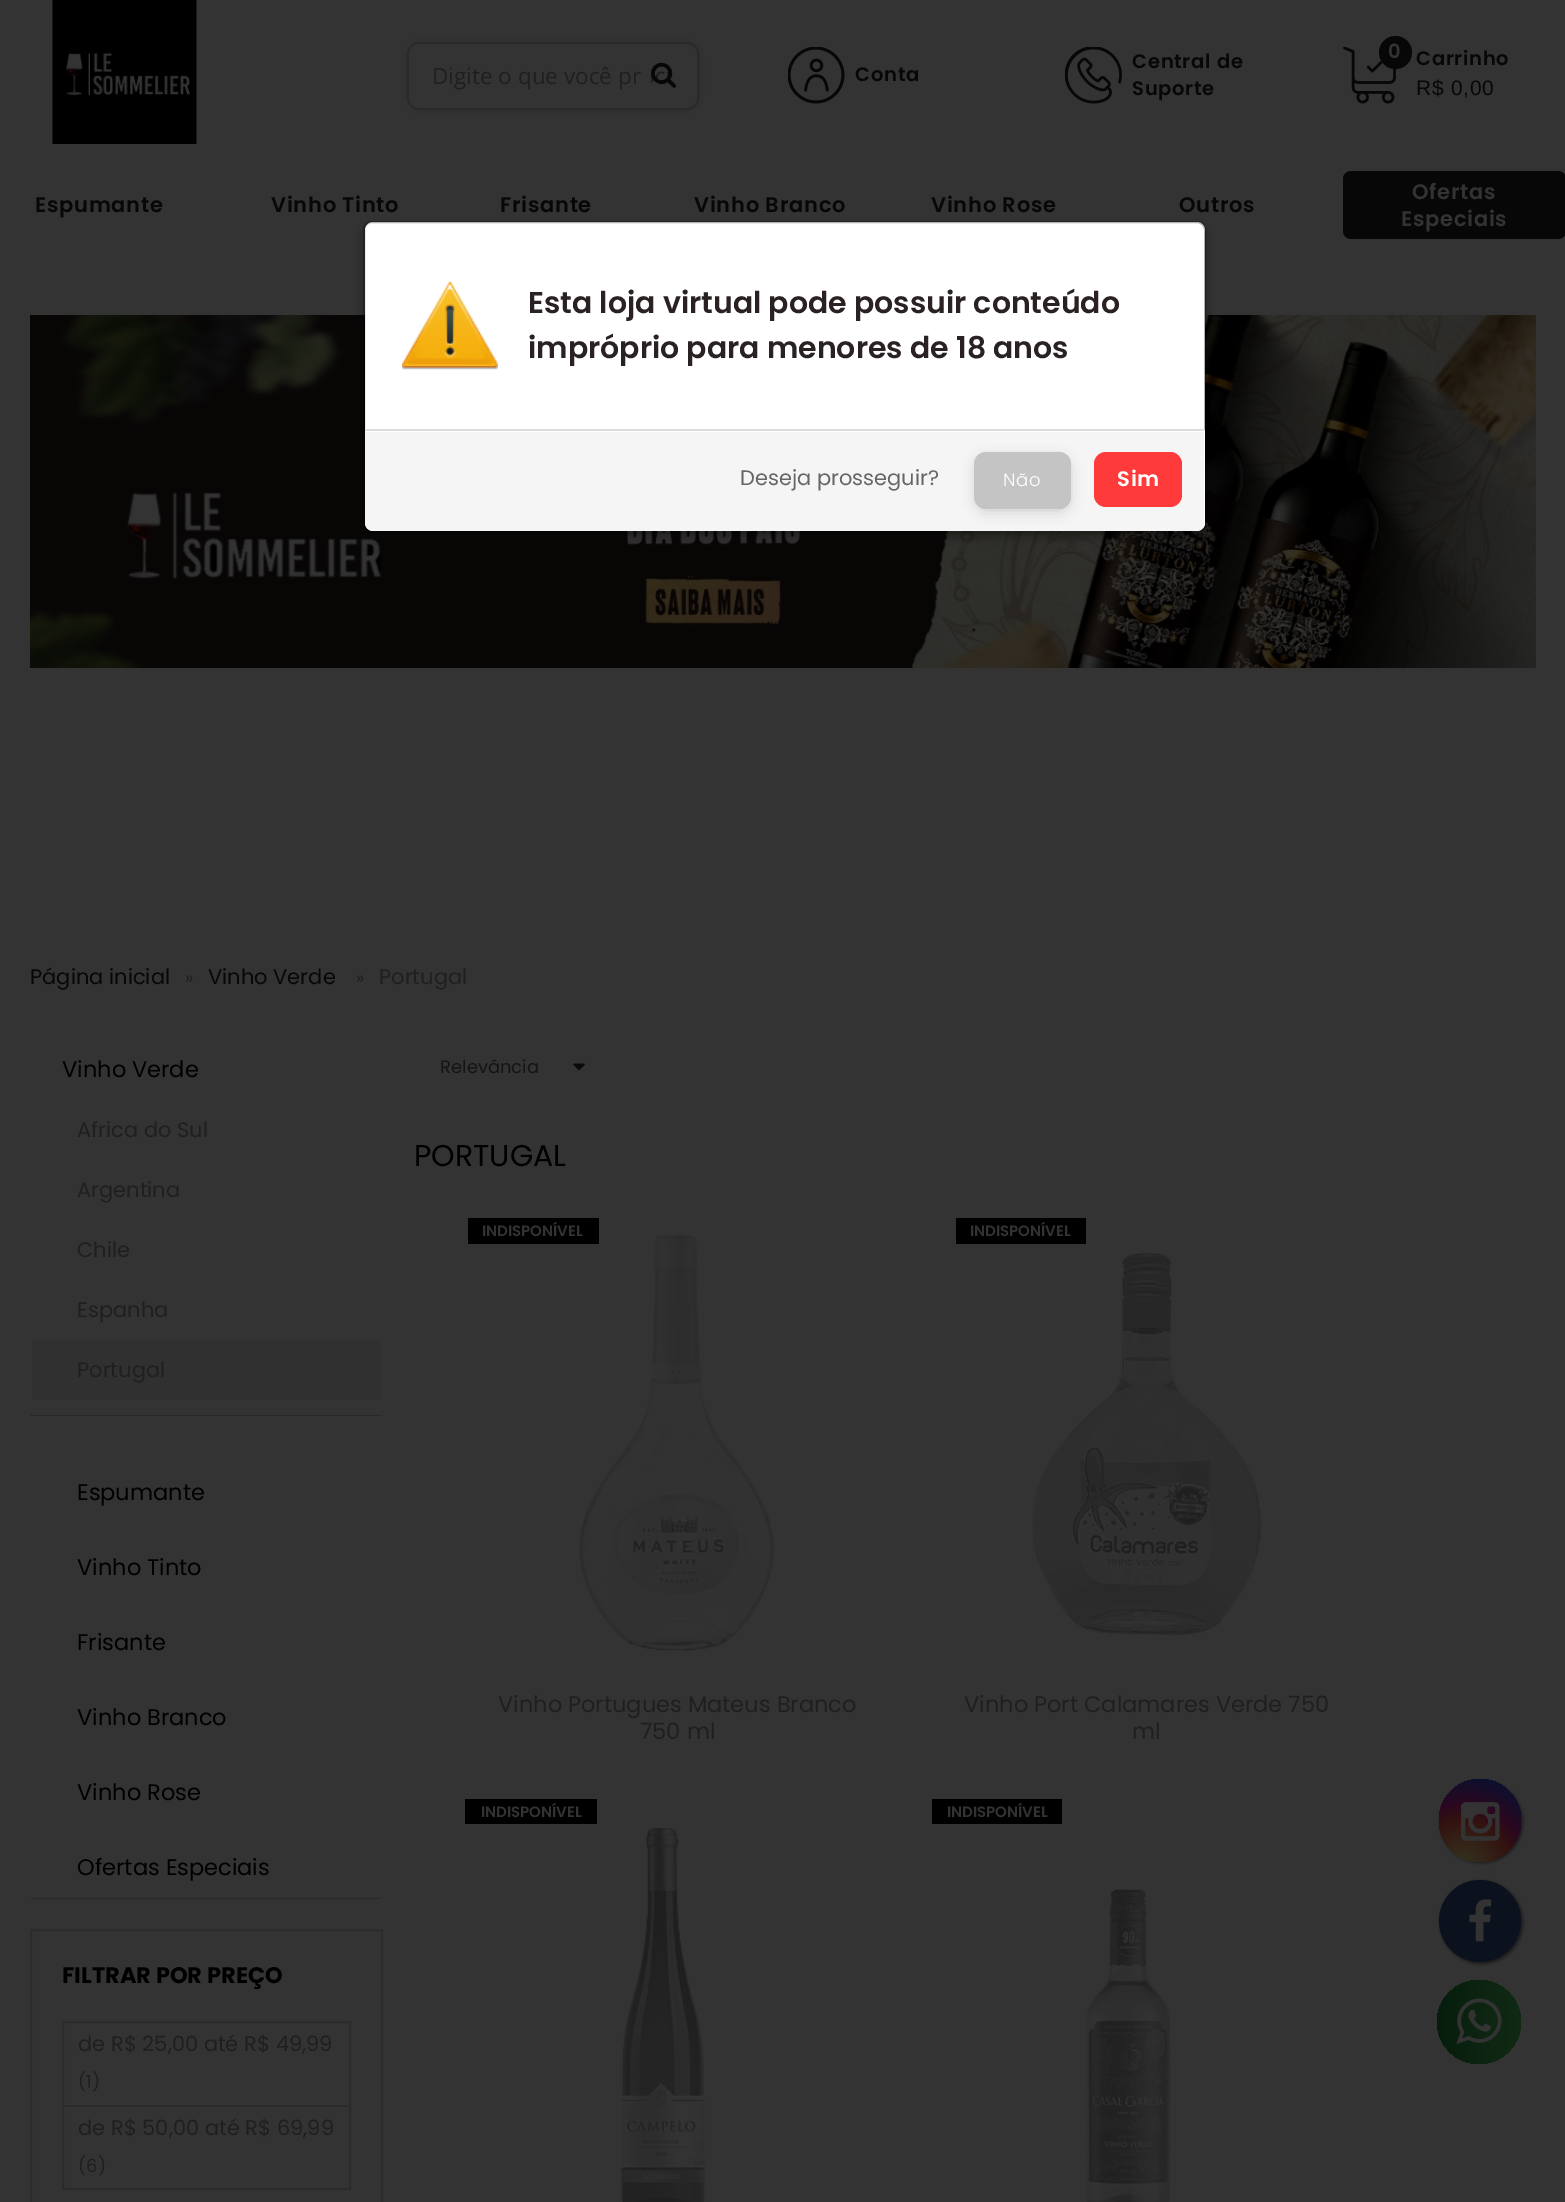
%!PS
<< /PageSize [1565 2202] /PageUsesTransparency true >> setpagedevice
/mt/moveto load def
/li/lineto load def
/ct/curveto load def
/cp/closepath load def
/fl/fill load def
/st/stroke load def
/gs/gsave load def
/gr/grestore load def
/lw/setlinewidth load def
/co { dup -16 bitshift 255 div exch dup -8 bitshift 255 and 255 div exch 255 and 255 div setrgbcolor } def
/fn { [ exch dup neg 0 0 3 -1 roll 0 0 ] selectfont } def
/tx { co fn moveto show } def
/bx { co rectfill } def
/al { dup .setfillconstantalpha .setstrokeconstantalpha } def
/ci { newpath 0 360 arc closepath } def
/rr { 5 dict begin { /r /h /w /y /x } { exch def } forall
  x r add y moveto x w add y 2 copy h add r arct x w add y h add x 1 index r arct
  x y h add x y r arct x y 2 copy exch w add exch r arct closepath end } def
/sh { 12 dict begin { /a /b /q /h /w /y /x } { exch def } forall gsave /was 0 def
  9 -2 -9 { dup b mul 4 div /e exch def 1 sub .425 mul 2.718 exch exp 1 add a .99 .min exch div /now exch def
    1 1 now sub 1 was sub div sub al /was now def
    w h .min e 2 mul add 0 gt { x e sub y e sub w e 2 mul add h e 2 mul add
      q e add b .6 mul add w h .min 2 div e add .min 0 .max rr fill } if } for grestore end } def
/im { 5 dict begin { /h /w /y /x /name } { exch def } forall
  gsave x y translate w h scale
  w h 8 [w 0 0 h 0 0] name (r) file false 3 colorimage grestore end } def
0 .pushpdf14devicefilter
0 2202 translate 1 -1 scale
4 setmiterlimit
0 0 1565 2202 16#333333 bx
(media/1.raw) 52 0 145 144 im
16#292929 co
410 45 286 62 9 7 1 sh
16#333333 co
408 43 290 66 11 rr gs fl gr
16#2A2A2A co
2 lw
st
(media/2.raw) 651 62 25 26 im
(media/3.raw) 788 47 57 57 im
(media/4.raw) 1065 47 57 57 im
(media/5.raw) 1343 47 53 57 im
16#080707 co
1395.5 52.5 16.5 ci fl
1343 171 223 68 8 rr fl
(media/6.raw) 30 315 1506 353 im
16#292929 co
382 1416 mt 30 1416 li 32 1414 li 381 1414 li cp fl
32 1414 349 1 16#333333 bx
32 1340 349 60 16#303030 bx
16#292929 co
382 1899 mt 30 1899 li 32 1898 li 381 1898 li cp fl
16#2A2B2B co
31 1930 351 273 rectstroke
63 2022 287 167 rectstroke
63 2105 287 2 16#2A2B2B bx
(media/7.raw) 573 1063 12 8 im
(media/8.raw) 579 1235 195 416 im
468 1218 131 26 16#000000 bx
956 1218 130 26 16#000000 bx
(media/9.raw) 1032 1252 230 383 im
465 1799 132 25 16#000000 bx
(media/10.raw) 621 1828 84 374 im
932 1799 130 25 16#000000 bx
(media/11.raw) 1086 1889 85 313 im
gs
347 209 mt 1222 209 li 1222 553 li 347 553 li cp 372 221 mt 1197 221 li 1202 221 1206 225 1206 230 ct 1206 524 li 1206 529 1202 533 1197 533 ct 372 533 li 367 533 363 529 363 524 ct 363 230 li 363 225 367 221 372 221 ct cp eoclip newpath
363 225 843 312 9 5 .3 sh
gr
16#FFFFFF co
365 222 840 309 8 rr fl
0.3 al
16#000000 co
364 222 841 310 8 rr st
1 al
(media/12.raw) 402 281 96 89 im
16#F5F5F5 co
365 429 mt 1205 429 li 1205 522 li 1205 527 1201 531 1196 531 ct 374 531 li 369 531 365 527 365 522 ct cp fl
16#FFFFFF co
365 431 mt 365 432 li 1204 432 li 1204 524 li 1204 525 1204 527 1203 528 ct 1204 526 1205 524 1205 522 ct 1205 431 li cp fl
365 429 840 2 16#DDDDDD bx
16#C4C4C4 co
977 459 91 51 9 7 1 sh
974 452 97 57 12 rr fl
16#FF3A3A co
1094 452 88 55 12 rr fl
16#1B1B1B co
1440 1781 83 82 41 1.5 1 sh
gs 1439 1779 82 83 41 rr clip newpath 1463 1867 translate 105 105 scale
<< /ShadingType 3 /ColorSpace /DeviceRGB /Coords [0 0 0 0 0 1] /Extend [true true] /Function << /FunctionType 3 /Domain [0 1] /Functions [<< /FunctionType 2 /Domain [0 1] /C0 [.2 .192 .118] /C1 [.2 .192 .118] /N 1 >> << /FunctionType 2 /Domain [0 1] /C0 [.2 .192 .118] /C1 [.2 .071 .059] /N 1 >> << /FunctionType 2 /Domain [0 1] /C0 [.2 .071 .059] /C1 [.169 .027 .125] /N 1 >> << /FunctionType 2 /Domain [0 1] /C0 [.169 .027 .125] /C1 [.031 .071 .184] /N 1 >> << /FunctionType 2 /Domain [0 1] /C0 [.031 .071 .184] /C1 [.031 .071 .184] /N 1 >>] /Bounds [.05 .45 .6 .9] /Encode [0 1 0 1 0 1 0 1 0 1] >> >> shfill gr
(media/13.raw) 1461 1802 39 39 im
1440 1881 83 83 41.5 1.5 1 sh
16#0B121E co
1480 1921 41 ci fl
(media/14.raw) 1469 1899 23 43 im
gs 1479 2022 42 ci clip newpath
<< /ShadingType 2 /ColorSpace /DeviceRGB /Coords [1437 2022 1521 2022] /Extend [true true] /Function << /FunctionType 2 /Domain [0 1] /C0 [.024 .114 .051] /C1 [.067 .165 .078] /N 1 >> >> shfill gr
(media/15.raw) 1456 1998 46 46 im
(Digite o que você pr) 432 84 /OpenSans-Regular 22.5 16#1F1F1F tx
/Poppins-SemiBold 19.5 fn
16#080707 co
855 81 mt .75 0 (Conta) ashow
1132 68 mt .75 0 (Central de) ashow
1132 95 mt .75 0 (Suporte) ashow
16#333333 co
1388 58 mt .75 0 (0) ashow
16#080707 co
1416 65 mt .75 0 (Carrinho) ashow
/LiberationSans-Regular 21 fn
1416 95 mt .75 0 (R$ 0,00) ashow
/Poppins-SemiBold 21 fn
35 212 mt .75 0 (Espumante) ashow
271 212 mt .75 0 (Vinho Tinto) ashow
500 212 mt .75 0 (Frisante) ashow
694 212 mt .75 0 (Vinho Branco) ashow
931 212 mt .75 0 (Vinho Rose) ashow
1179 212 mt .75 0 (Outros) ashow
16#333333 co
1412 199 mt .75 0 (Ofertas) ashow
1401 226 mt .75 0 (Especiais) ashow
(Página inicial) 30 984 /Poppins-Regular 21 16#080707 tx
(») 185 984 /Poppins-Regular 18 16#1F1F1F tx
(Vinho Verde) 208 984 /Poppins-Regular 21 16#080707 tx
(») 356 984 /Poppins-Regular 18 16#1F1F1F tx
(Portugal) 379 984 /Poppins-Regular 21 16#1F1F1F tx
(Vinho Verde) 62 1077 /Poppins-Regular 22.5 16#000000 tx
(Africa do Sul) 77 1137 /Poppins-Regular 21 16#1F1F1F tx
(Argentina) 77 1197 /Poppins-Regular 21 16#1F1F1F tx
(Chile) 77 1257 /Poppins-Regular 21 16#1F1F1F tx
(Espanha) 77 1317 /Poppins-Regular 21 16#1F1F1F tx
(Portugal) 77 1377 /Poppins-Regular 21 16#1F1F1F tx
(Espumante) 77 1500 /Poppins-Regular 22.5 16#000000 tx
(Vinho Tinto) 77 1575 /Poppins-Regular 22.5 16#000000 tx
(Frisante) 77 1650 /Poppins-Regular 22.5 16#000000 tx
(Vinho Branco) 77 1725 /Poppins-Regular 22.5 16#000000 tx
(Vinho Rose) 77 1800 /Poppins-Regular 22.5 16#000000 tx
(Ofertas Especiais) 77 1875 /Poppins-Regular 22.5 16#000000 tx
(FILTRAR POR PREÇO) 62 1983 /Poppins-Bold 22.5 16#000000 tx
(de R$ 25,00 até R$ 49,99) 78 2051 /Poppins-Regular 21 16#1F1F1F tx
(\(1\)) 78 2088 /Poppins-Regular 18 16#1F1F1F tx
(de R$ 50,00 até R$ 69,99) 78 2135 /Poppins-Regular 21 16#1F1F1F tx
(\(6\)) 78 2172 /Poppins-Regular 18 16#1F1F1F tx
(Relevância) 440 1073 /Poppins-Regular 18 16#141414 tx
(PORTUGAL) 414 1166 /Poppins-Regular 30 16#000000 tx
(INDISPONÍVEL) 482 1236 /Poppins-SemiBold 15 16#333333 tx
(Vinho Portugues Mateus Branco) 498 1712 /Poppins-Regular 22.5 16#1F1F1F tx
(750 ml) 640 1739 /Poppins-Regular 22.5 16#1F1F1F tx
(INDISPONÍVEL) 970 1236 /Poppins-SemiBold 15 16#333333 tx
(Vinho Port Calamares Verde 750) 964 1712 /Poppins-Regular 22.5 16#1F1F1F tx
(ml) 1132 1739 /Poppins-Regular 22.5 16#1F1F1F tx
(INDISPONÍVEL) 481 1817 /Poppins-SemiBold 15 16#333333 tx
(INDISPONÍVEL) 947 1817 /Poppins-SemiBold 15 16#333333 tx
(Esta loja virtual pode possuir conteúdo) 528 313 /Poppins-SemiBold 30 16#2A2222 tx
(impróprio para menores de 18 anos) 528 358 /Poppins-SemiBold 30 16#2A2222 tx
(Deseja prosseguir?) 740 485 /Poppins-Regular 21 16#666666 tx
/Poppins-Light 18 fn
16#FFFFFF co
1003 486 mt .75 0 (Não) ashow
/Poppins-SemiBold 21 fn
1117 486 mt .75 0 (Sim) ashow
.poppdf14devicefilter showpage
